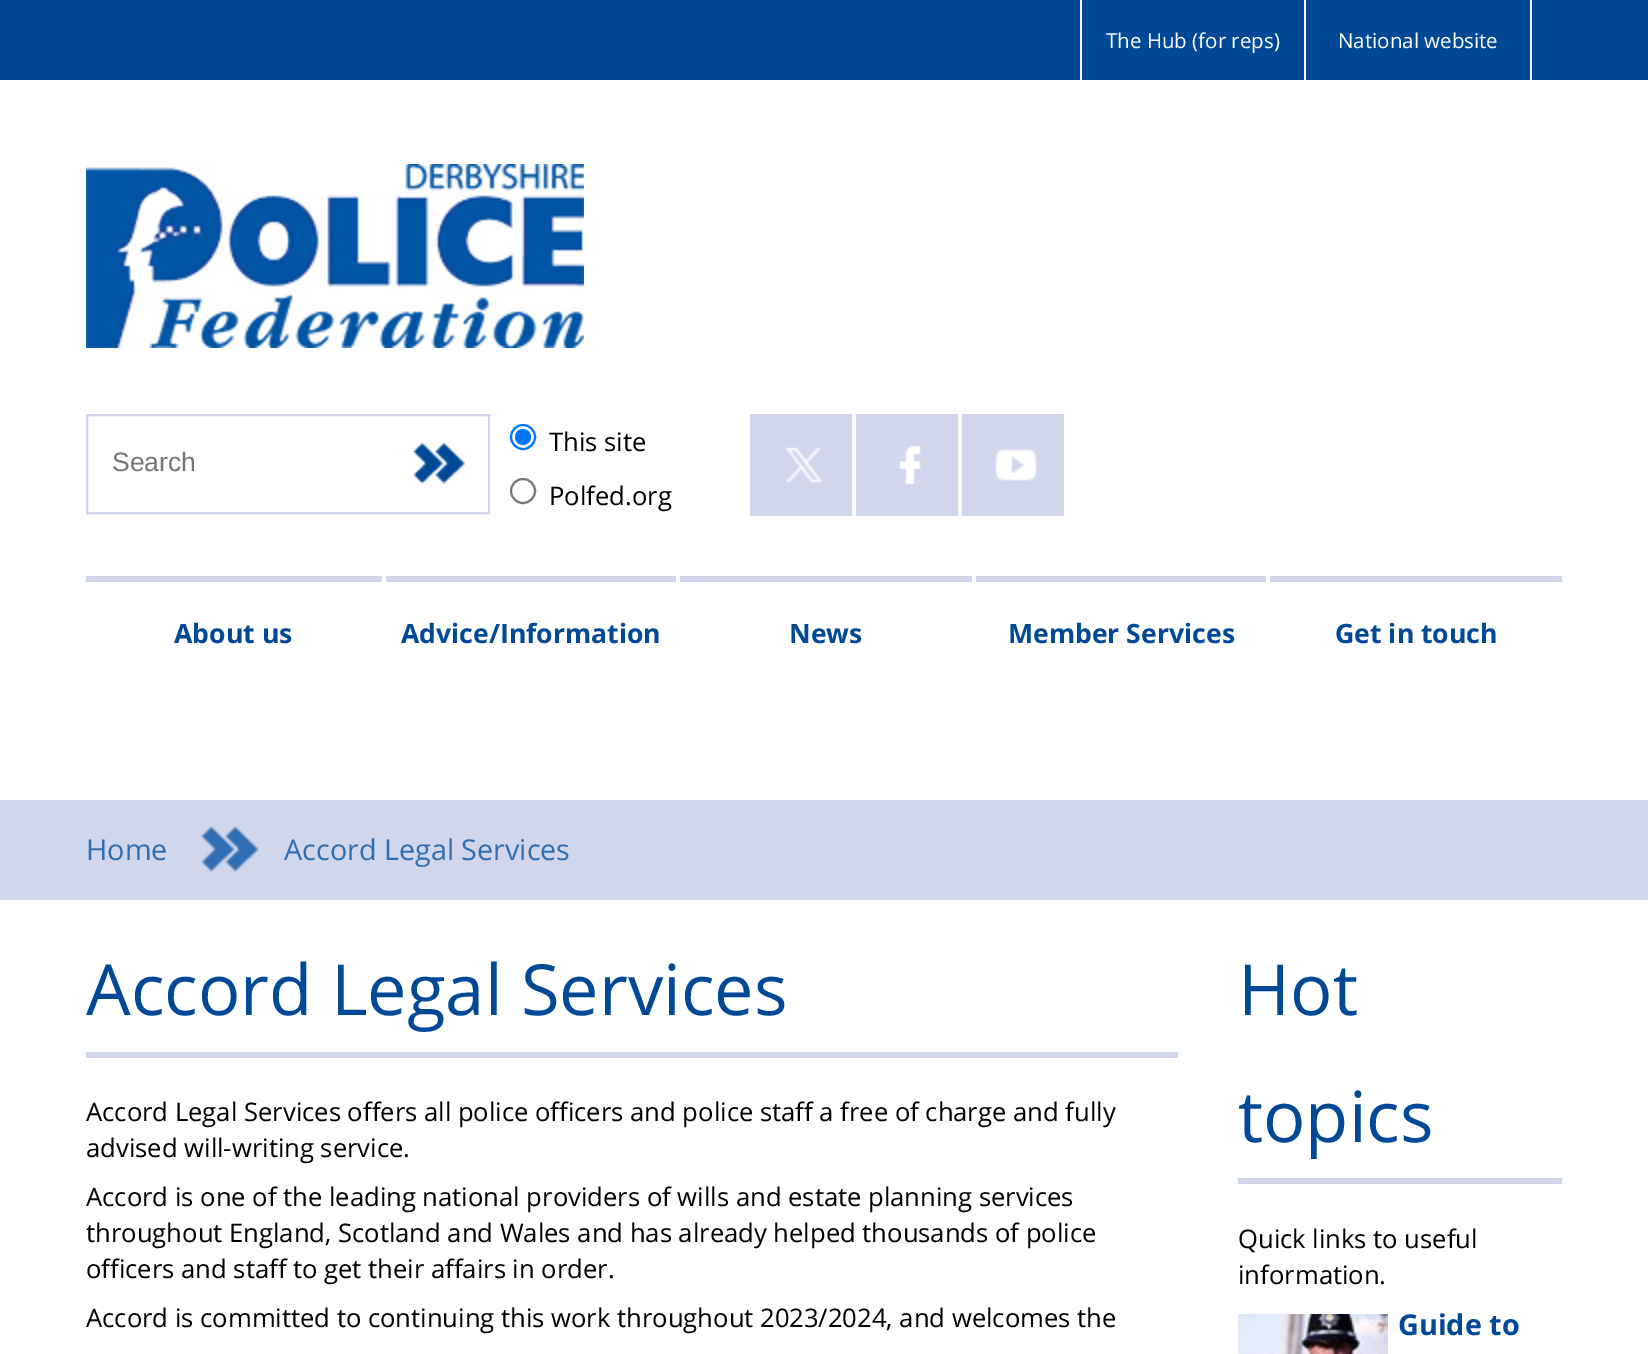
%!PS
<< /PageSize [1648 1354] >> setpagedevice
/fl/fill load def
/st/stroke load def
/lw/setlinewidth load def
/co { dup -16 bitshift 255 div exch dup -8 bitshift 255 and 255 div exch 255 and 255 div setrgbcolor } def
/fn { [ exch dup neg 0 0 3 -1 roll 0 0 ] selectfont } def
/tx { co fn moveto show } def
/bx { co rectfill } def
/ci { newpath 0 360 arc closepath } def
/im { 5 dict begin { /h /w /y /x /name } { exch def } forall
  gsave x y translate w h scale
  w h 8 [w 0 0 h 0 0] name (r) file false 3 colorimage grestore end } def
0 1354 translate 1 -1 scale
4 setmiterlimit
0 0 1648 1354 16#FFFFFF bx
0 0 1648 80 16#004996 bx
1304 0 2 80 16#FFFFFF bx
1080 0 2 80 16#FFFFFF bx
1530 0 2 80 16#FFFFFF bx
(media/1.raw) 86 164 498 184 im
16#D1D6EC co
2 lw
87 415 402 98 rectstroke
(media/2.raw) 413 442 52 42 im
16#0075FF co
523 437 12 ci st
523 437 8 ci fl
16#767676 co
523 491 12 ci st
750 414 102 102 16#D1D6EC bx
(media/3.raw) 785 447 38 36 im
856 414 102 102 16#D1D6EC bx
(media/4.raw) 899 445 22 40 im
962 414 102 102 16#D1D6EC bx
(media/5.raw) 995 449 42 32 im
86 576 296 6 16#D1D6EC bx
386 576 290 6 16#D1D6EC bx
680 576 292 6 16#D1D6EC bx
976 576 290 6 16#D1D6EC bx
1270 576 292 6 16#D1D6EC bx
0 800 1648 100 16#D1D6EC bx
(media/6.raw) 201 826 58 46 im
86 1052 1092 6 16#D1D6EC bx
1238 1178 324 6 16#D1D6EC bx
(media/7.raw) 1238 1314 150 40 im
(The Hub \(for reps\)) 1106 48 /OpenSans-Regular 20.5 16#FFFFFF tx
(National website) 1338 48 /OpenSans-Regular 20.5 16#FFFFFF tx
(Search) 112 471 /LiberationSans-Regular 26.5 16#757575 tx
(This site) 549 451 /OpenSans-Regular 25.6 16#000000 tx
(Polfed.org) 549 505 /OpenSans-Regular 25.6 16#000000 tx
(About us) 174 643 /OpenSans-Bold 26.6 16#004996 tx
(Advice/Information) 401 643 /OpenSans-Bold 26.6 16#004996 tx
(News) 789 643 /OpenSans-Bold 26.6 16#004996 tx
(Member Services) 1008 643 /OpenSans-Bold 26.6 16#004996 tx
(Get in touch) 1335 643 /OpenSans-Bold 26.6 16#004996 tx
(Home) 86 860 /OpenSans-Regular 28.75 16#2F6EB3 tx
(Accord Legal Services) 284 860 /OpenSans-Regular 28.75 16#2F6EB3 tx
(Accord Legal Services) 86 1015 /OpenSans-Regular 70.5 16#004996 tx
(Accord Legal Services offers all police officers and police staff a free of charge and fully) 86 1121 /OpenSans-Regular 25.6 16#000000 tx
(advised will-writing service.) 86 1157 /OpenSans-Regular 25.6 16#000000 tx
(Accord is one of the leading national providers of wills and estate planning services) 86 1206 /OpenSans-Regular 25.6 16#000000 tx
(throughout England, Scotland and Wales and has already helped thousands of police) 86 1242 /OpenSans-Regular 25.6 16#000000 tx
(officers and staff to get their affairs in order.) 86 1278 /OpenSans-Regular 25.6 16#000000 tx
(Accord is committed to continuing this work throughout 2023/2024, and welcomes the) 86 1327 /OpenSans-Regular 25.6 16#000000 tx
(Hot) 1238 1015 /OpenSans-Regular 70.5 16#004996 tx
(topics) 1238 1142 /OpenSans-Regular 70.5 16#004996 tx
(Quick links to useful) 1238 1248 /OpenSans-Regular 25.6 16#000000 tx
(information.) 1238 1284 /OpenSans-Regular 25.6 16#000000 tx
(Guide to) 1398 1335 /OpenSans-Bold 28.75 16#004996 tx
showpage
